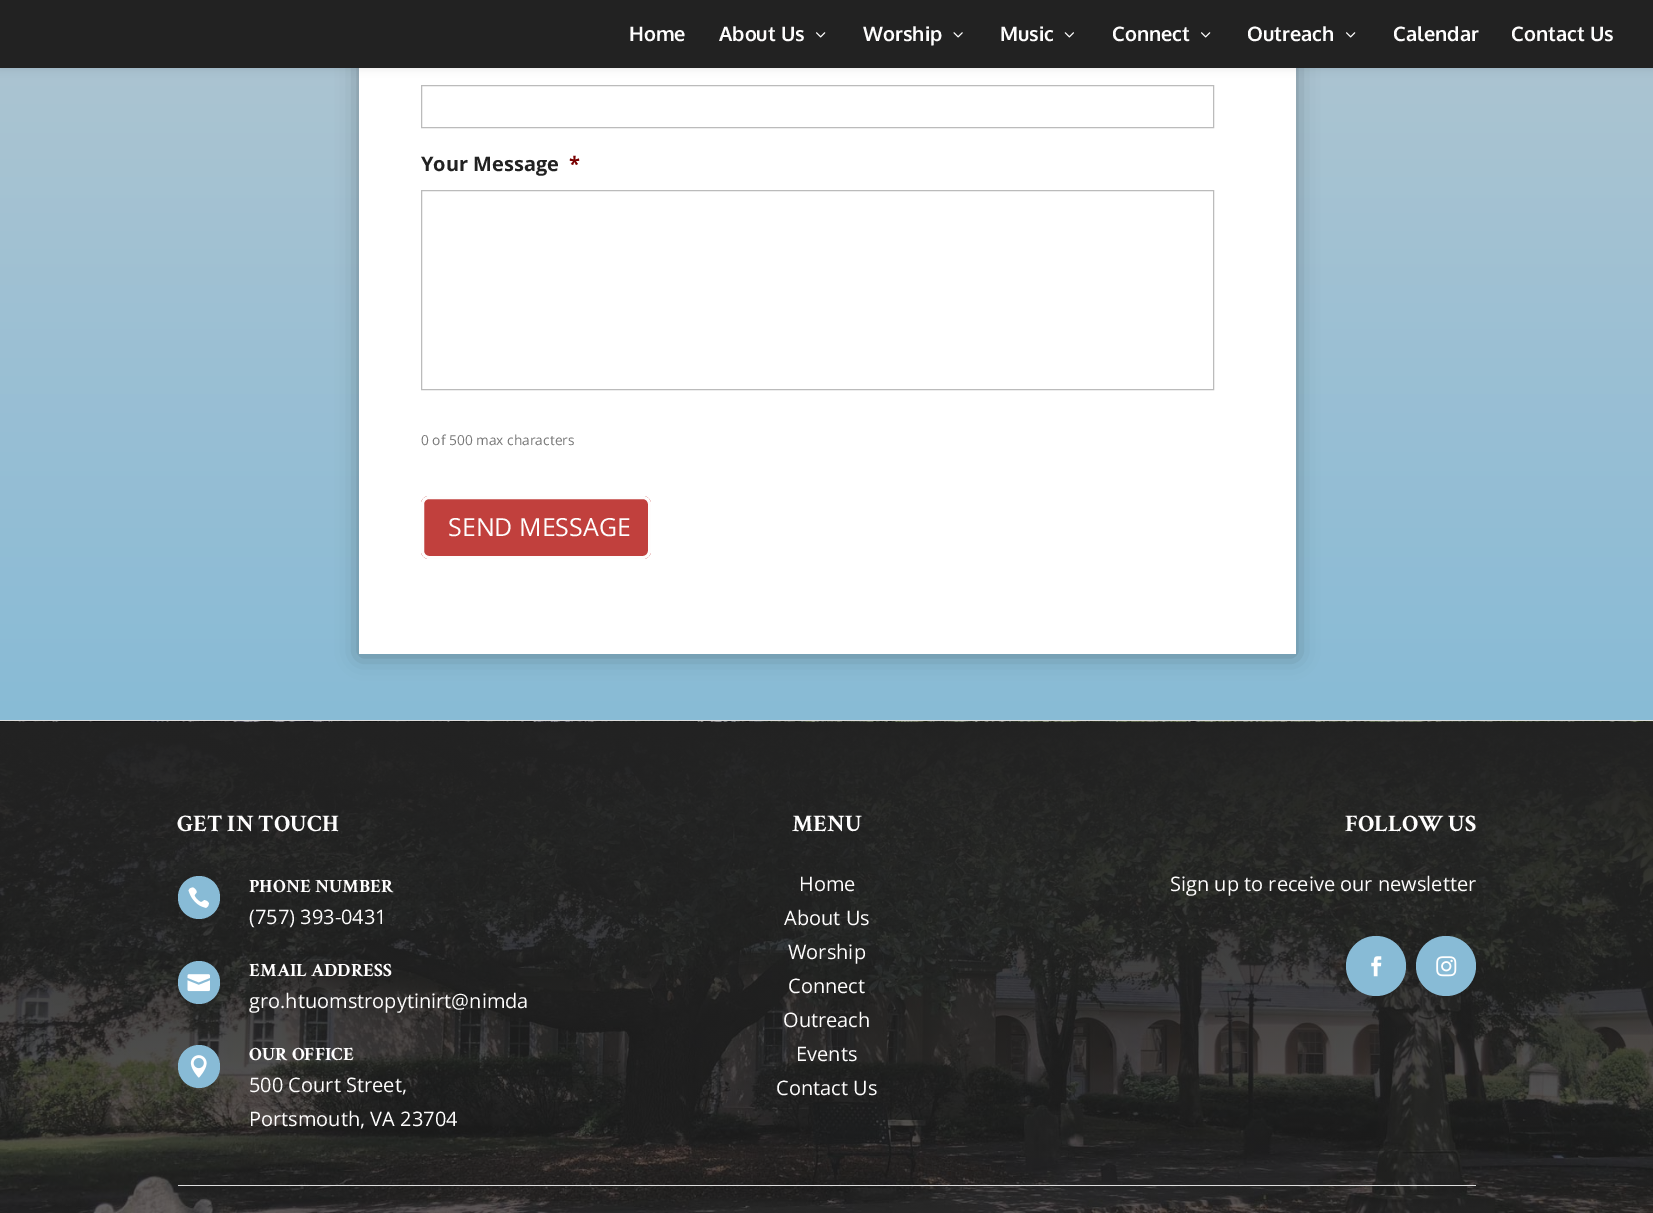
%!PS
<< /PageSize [1653 1213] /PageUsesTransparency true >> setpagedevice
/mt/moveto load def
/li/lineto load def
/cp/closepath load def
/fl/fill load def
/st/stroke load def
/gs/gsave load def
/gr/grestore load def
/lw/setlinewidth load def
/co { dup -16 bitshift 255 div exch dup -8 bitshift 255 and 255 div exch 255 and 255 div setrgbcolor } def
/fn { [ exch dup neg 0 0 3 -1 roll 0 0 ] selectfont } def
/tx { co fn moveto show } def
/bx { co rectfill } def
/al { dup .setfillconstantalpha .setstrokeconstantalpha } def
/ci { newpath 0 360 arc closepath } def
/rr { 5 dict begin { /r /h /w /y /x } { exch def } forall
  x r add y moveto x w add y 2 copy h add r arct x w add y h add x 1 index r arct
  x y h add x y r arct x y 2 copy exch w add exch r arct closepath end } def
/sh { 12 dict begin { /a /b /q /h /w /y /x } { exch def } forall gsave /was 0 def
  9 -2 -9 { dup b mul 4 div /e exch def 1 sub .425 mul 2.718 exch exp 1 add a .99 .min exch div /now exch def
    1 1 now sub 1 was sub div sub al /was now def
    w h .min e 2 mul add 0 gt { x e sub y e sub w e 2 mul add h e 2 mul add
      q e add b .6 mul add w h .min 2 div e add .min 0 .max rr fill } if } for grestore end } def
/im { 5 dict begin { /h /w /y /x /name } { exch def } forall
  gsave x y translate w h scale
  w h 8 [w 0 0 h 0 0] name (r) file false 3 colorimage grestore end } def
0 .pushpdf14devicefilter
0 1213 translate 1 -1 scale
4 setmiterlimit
0 0 1653 1213 16#FFFFFF bx
gs 0 68 mt 1653 68 li 1653 720 li 0 720 li cp clip newpath
<< /ShadingType 2 /ColorSpace /DeviceRGB /Coords [827 -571 827 720] /Extend [true true] /Function << /FunctionType 2 /Domain [0 1] /C0 [.804 .804 .804] /C1 [.533 .733 .839] /N 1 >> >> shfill gr
16#000000 co
359 -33 937 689 0 11 .3 sh
359 68 937 586 16#FFFFFF bx
16#000000 co
0 0 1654 68 0 4.5 .1 sh
0 0 1653 68 16#222222 bx
(media/1.raw) 816 32 10 6 im
(media/2.raw) 953 32 10 6 im
(media/3.raw) 1064 32 10 6 im
(media/1.raw) 1201 32 10 6 im
(media/1.raw) 1346 32 10 6 im
16#BBBBBB co
421.5 85.5 792 42 rectstroke
421.5 190.5 792 199 rectstroke
16#C1403D co
421 496 230 63 8 rr fl
0.99 al
16#FFFFFF co
3 lw
422.5 497.5 227 60 6.5 rr st
1 al
(media/4.raw) 0 721 1653 492 im
0 720 1653 1 16#DDDDDD bx
16#88BBD6 co
178 876 42 43 21 rr fl
(media/5.raw) 188 887 21 21 im
178 961 42 43 21 rr fl
(media/6.raw) 187 974 23 18 im
178 1045 42 43 21 rr fl
(media/7.raw) 190 1055 17 23 im
1376 966 30 ci fl
(media/8.raw) 1371 956 11 21 im
1446 966 30 ci fl
(media/9.raw) 1436 956 21 21 im
178 1185 1298 1 16#DDDDDD bx
(Home) 629 41 /Oxygen-Bold 20 16#FEFDFD tx
(About Us) 719 41 /Oxygen-Bold 20 16#FEFDFD tx
(Worship) 863 41 /Oxygen-Bold 20 16#FEFDFD tx
(Music) 1000 41 /Oxygen-Bold 20 16#FEFDFD tx
(Connect) 1112 41 /Oxygen-Bold 20 16#FEFDFD tx
(Outreach) 1247 41 /Oxygen-Bold 20 16#FEFDFD tx
(Calendar) 1393 41 /Oxygen-Bold 20 16#FEFDFD tx
(Contact Us) 1511 41 /Oxygen-Bold 20 16#FEFDFD tx
(Your Message) 421 171 /OpenSans-Bold 20 16#222222 tx
(*) 569 171 /OpenSans-Bold 20 16#790000 tx
(0 of 500 max characters) 421 445 /OpenSans-Regular 13.75 16#767676 tx
(SEND MESSAGE) 448 536 /OpenSans-Regular 25 16#FEFDFD tx
(GET IN TOUCH) 177 831 /CrimsonText-Bold 23.75 16#FEFDFD tx
(PHONE NUMBER) 249 892 /CrimsonText-Bold 18.75 16#FEFDFD tx
(\(757\) 393-0431) 249 924 /OpenSans-Regular 20 16#FEFDFD tx
(EMAIL ADDRESS) 249 976 /CrimsonText-Bold 18.75 16#FEFDFD tx
(gro.htuomstropytinirt@nimda) 249 1008 /OpenSans-Regular 20 16#FEFDFD tx
(OUR OFFICE) 249 1060 /CrimsonText-Bold 18.75 16#FEFDFD tx
(500 Court Street,) 249 1092 /OpenSans-Regular 20 16#FEFDFD tx
(Portsmouth, VA 23704) 249 1126 /OpenSans-Regular 20 16#FEFDFD tx
(MENU) 792 831 /CrimsonText-Bold 23.75 16#FEFDFD tx
(Home) 799 891 /OpenSans-Regular 20 16#FEFDFD tx
(About Us) 784 925 /OpenSans-Regular 20 16#FEFDFD tx
(Worship) 788 959 /OpenSans-Regular 20 16#FEFDFD tx
(Connect) 788 993 /OpenSans-Regular 20 16#FEFDFD tx
(Outreach) 783 1027 /OpenSans-Regular 20 16#FEFDFD tx
(Events) 796 1061 /OpenSans-Regular 20 16#FEFDFD tx
(Contact Us) 776 1095 /OpenSans-Regular 20 16#FEFDFD tx
(FOLLOW US) 1345 831 /CrimsonText-Bold 23.75 16#FEFDFD tx
(Sign up to receive our newsletter) 1170 891 /OpenSans-Regular 20 16#FEFDFD tx
.poppdf14devicefilter showpage
